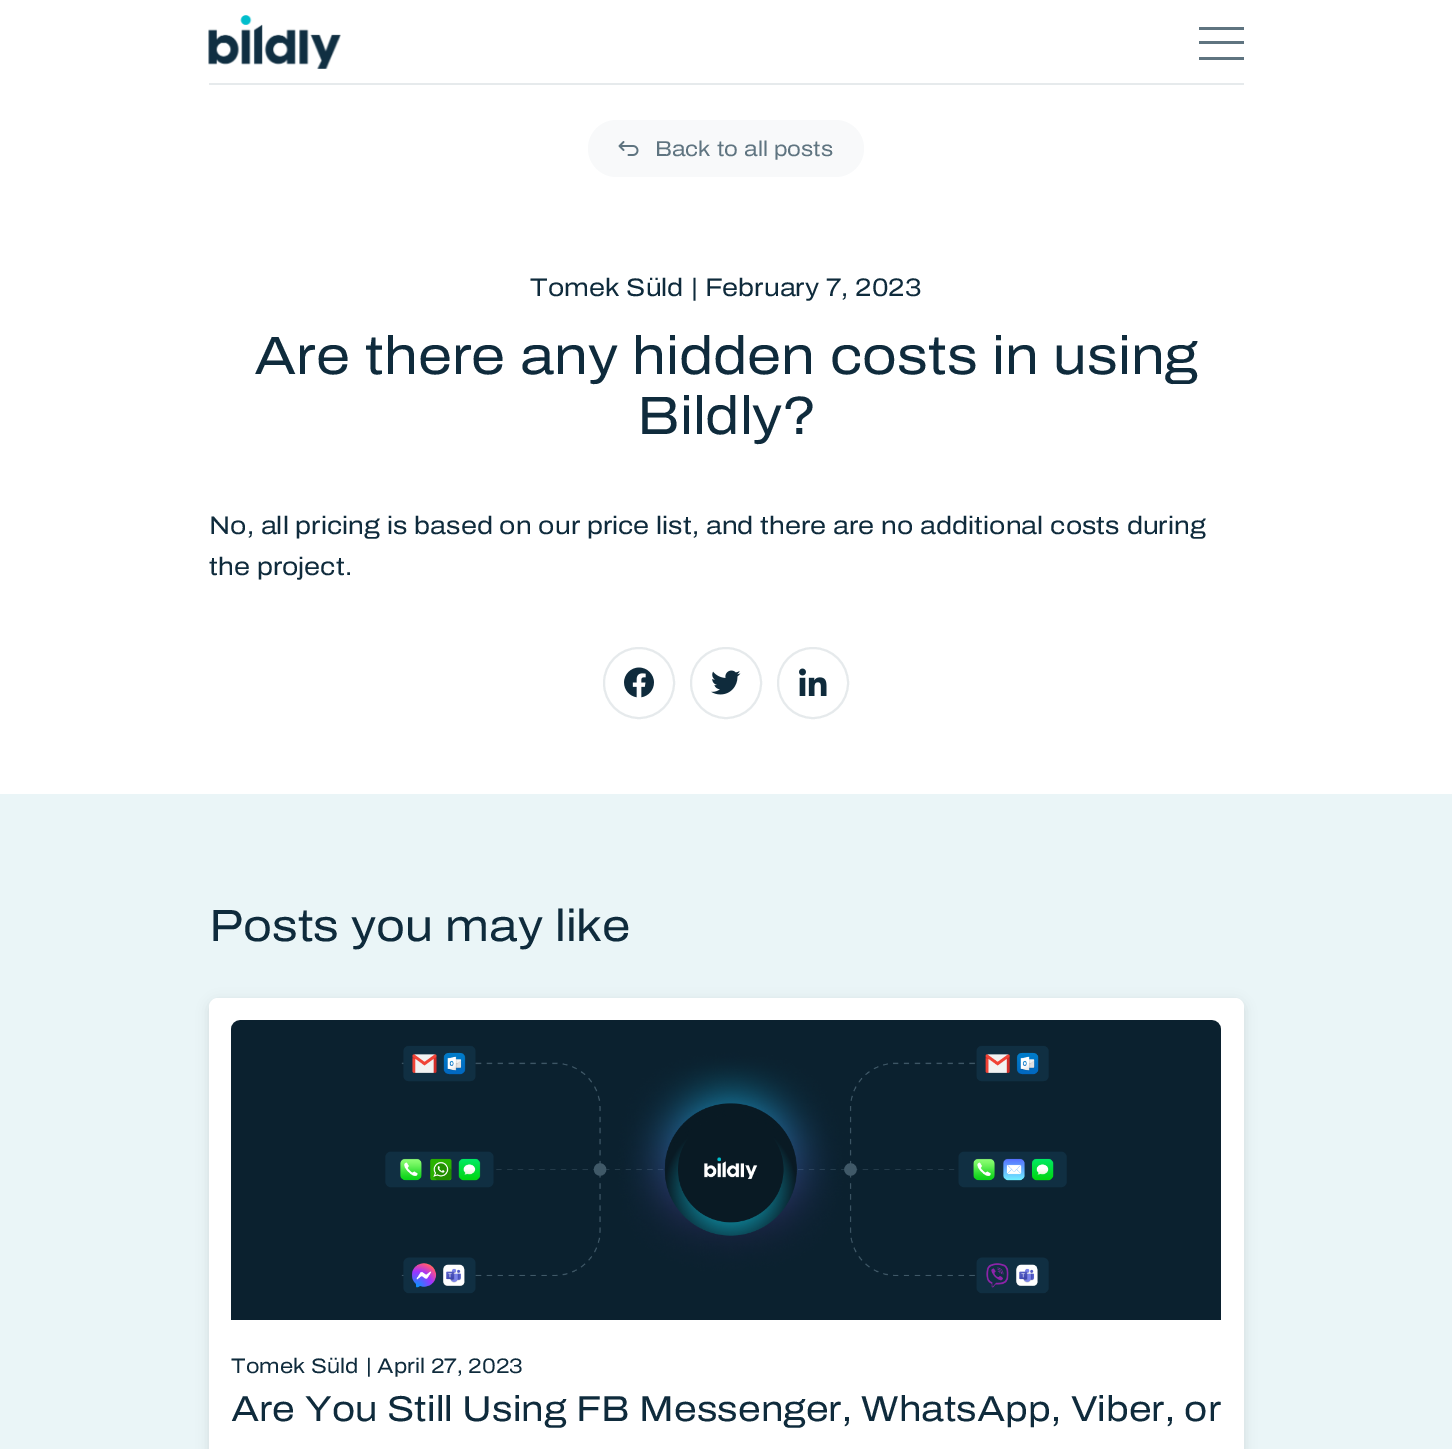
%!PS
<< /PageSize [1452 1449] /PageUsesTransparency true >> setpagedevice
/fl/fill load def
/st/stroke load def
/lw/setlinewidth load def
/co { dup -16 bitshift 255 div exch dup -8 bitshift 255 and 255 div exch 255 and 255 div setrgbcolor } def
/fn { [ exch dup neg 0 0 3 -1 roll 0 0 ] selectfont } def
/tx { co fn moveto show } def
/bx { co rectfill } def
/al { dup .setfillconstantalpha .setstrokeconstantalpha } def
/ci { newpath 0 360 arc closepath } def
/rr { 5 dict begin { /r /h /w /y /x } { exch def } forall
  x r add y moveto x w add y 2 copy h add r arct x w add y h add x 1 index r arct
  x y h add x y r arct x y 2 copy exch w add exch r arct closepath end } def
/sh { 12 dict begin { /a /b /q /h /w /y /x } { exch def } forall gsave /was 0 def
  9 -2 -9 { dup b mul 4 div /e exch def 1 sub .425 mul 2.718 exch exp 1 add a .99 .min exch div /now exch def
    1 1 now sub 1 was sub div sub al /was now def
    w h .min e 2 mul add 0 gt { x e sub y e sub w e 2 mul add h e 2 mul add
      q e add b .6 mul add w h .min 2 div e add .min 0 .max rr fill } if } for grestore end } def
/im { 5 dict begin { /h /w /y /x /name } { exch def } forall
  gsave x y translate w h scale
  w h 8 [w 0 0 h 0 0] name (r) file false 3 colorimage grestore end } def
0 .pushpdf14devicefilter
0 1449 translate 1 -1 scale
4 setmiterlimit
0 0 1452 1449 16#FFFFFF bx
(media/1.raw) 208 15 133 54 im
1199 27 45 3 16#5F7480 bx
1199 41 45 3 16#5F7480 bx
1199 57 45 3 16#5F7480 bx
209 83 1035 2 16#E6EAEC bx
16#F8F9FA co
588 120 276 57 28.5 rr fl
(media/2.raw) 618 141 21 15 im
16#E6EAEC co
2 lw
639 683 35 ci st
(media/3.raw) 624 667 30 31 im
726 683 35 ci st
(media/4.raw) 711 670 30 25 im
813 683 35 ci st
(media/5.raw) 799 668 28 28 im
0 794 1452 655 16#EAF5F7 bx
16#000000 co
209 1001 1035 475 9 6 .1 sh
16#FFFFFF co
209 998 1035 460 9 rr fl
(media/6.raw) 231 1020 990 300 im
(Back to all posts) 655 156 /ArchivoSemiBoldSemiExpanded-Regular 21.5 16#5F7480 tx
(Tomek Süld) 530 296 /ArchivoSemiBoldSemiExpanded-Regular 25.35 16#0F2B3C tx
(| February 7, 2023) 691 296 /ArchivoSemiBoldSemiExpanded-Regular 25.35 16#0F2B3C tx
(Are there any hidden costs in using) 254 374 /ArchivoSemiBoldSemiExpanded-Regular 54 16#0F2B3C tx
(Bildly?) 637 434 /ArchivoSemiBoldSemiExpanded-Regular 54 16#0F2B3C tx
(No, all pricing is based on our price list, and there are no additional costs during) 209 534 /ArchivoSemiBoldSemiExpanded-Regular 25.35 16#0F2B3C tx
(the project.) 209 575 /ArchivoSemiBoldSemiExpanded-Regular 25.35 16#0F2B3C tx
(Posts you may like) 209 941 /ArchivoSemiBoldSemiExpanded-Regular 45 16#0F2B3C tx
(Tomek Süld) 231 1373 /ArchivoSemiBoldSemiExpanded-Regular 21 16#0F2B3C tx
(| April 27, 2023) 366 1373 /ArchivoSemiBoldSemiExpanded-Regular 21 16#0F2B3C tx
(Are You Still Using FB Messenger, WhatsApp, Viber, or) 231 1421 /ArchivoSemiBoldSemiExpanded-Regular 36 16#0F2B3C tx
.poppdf14devicefilter showpage
